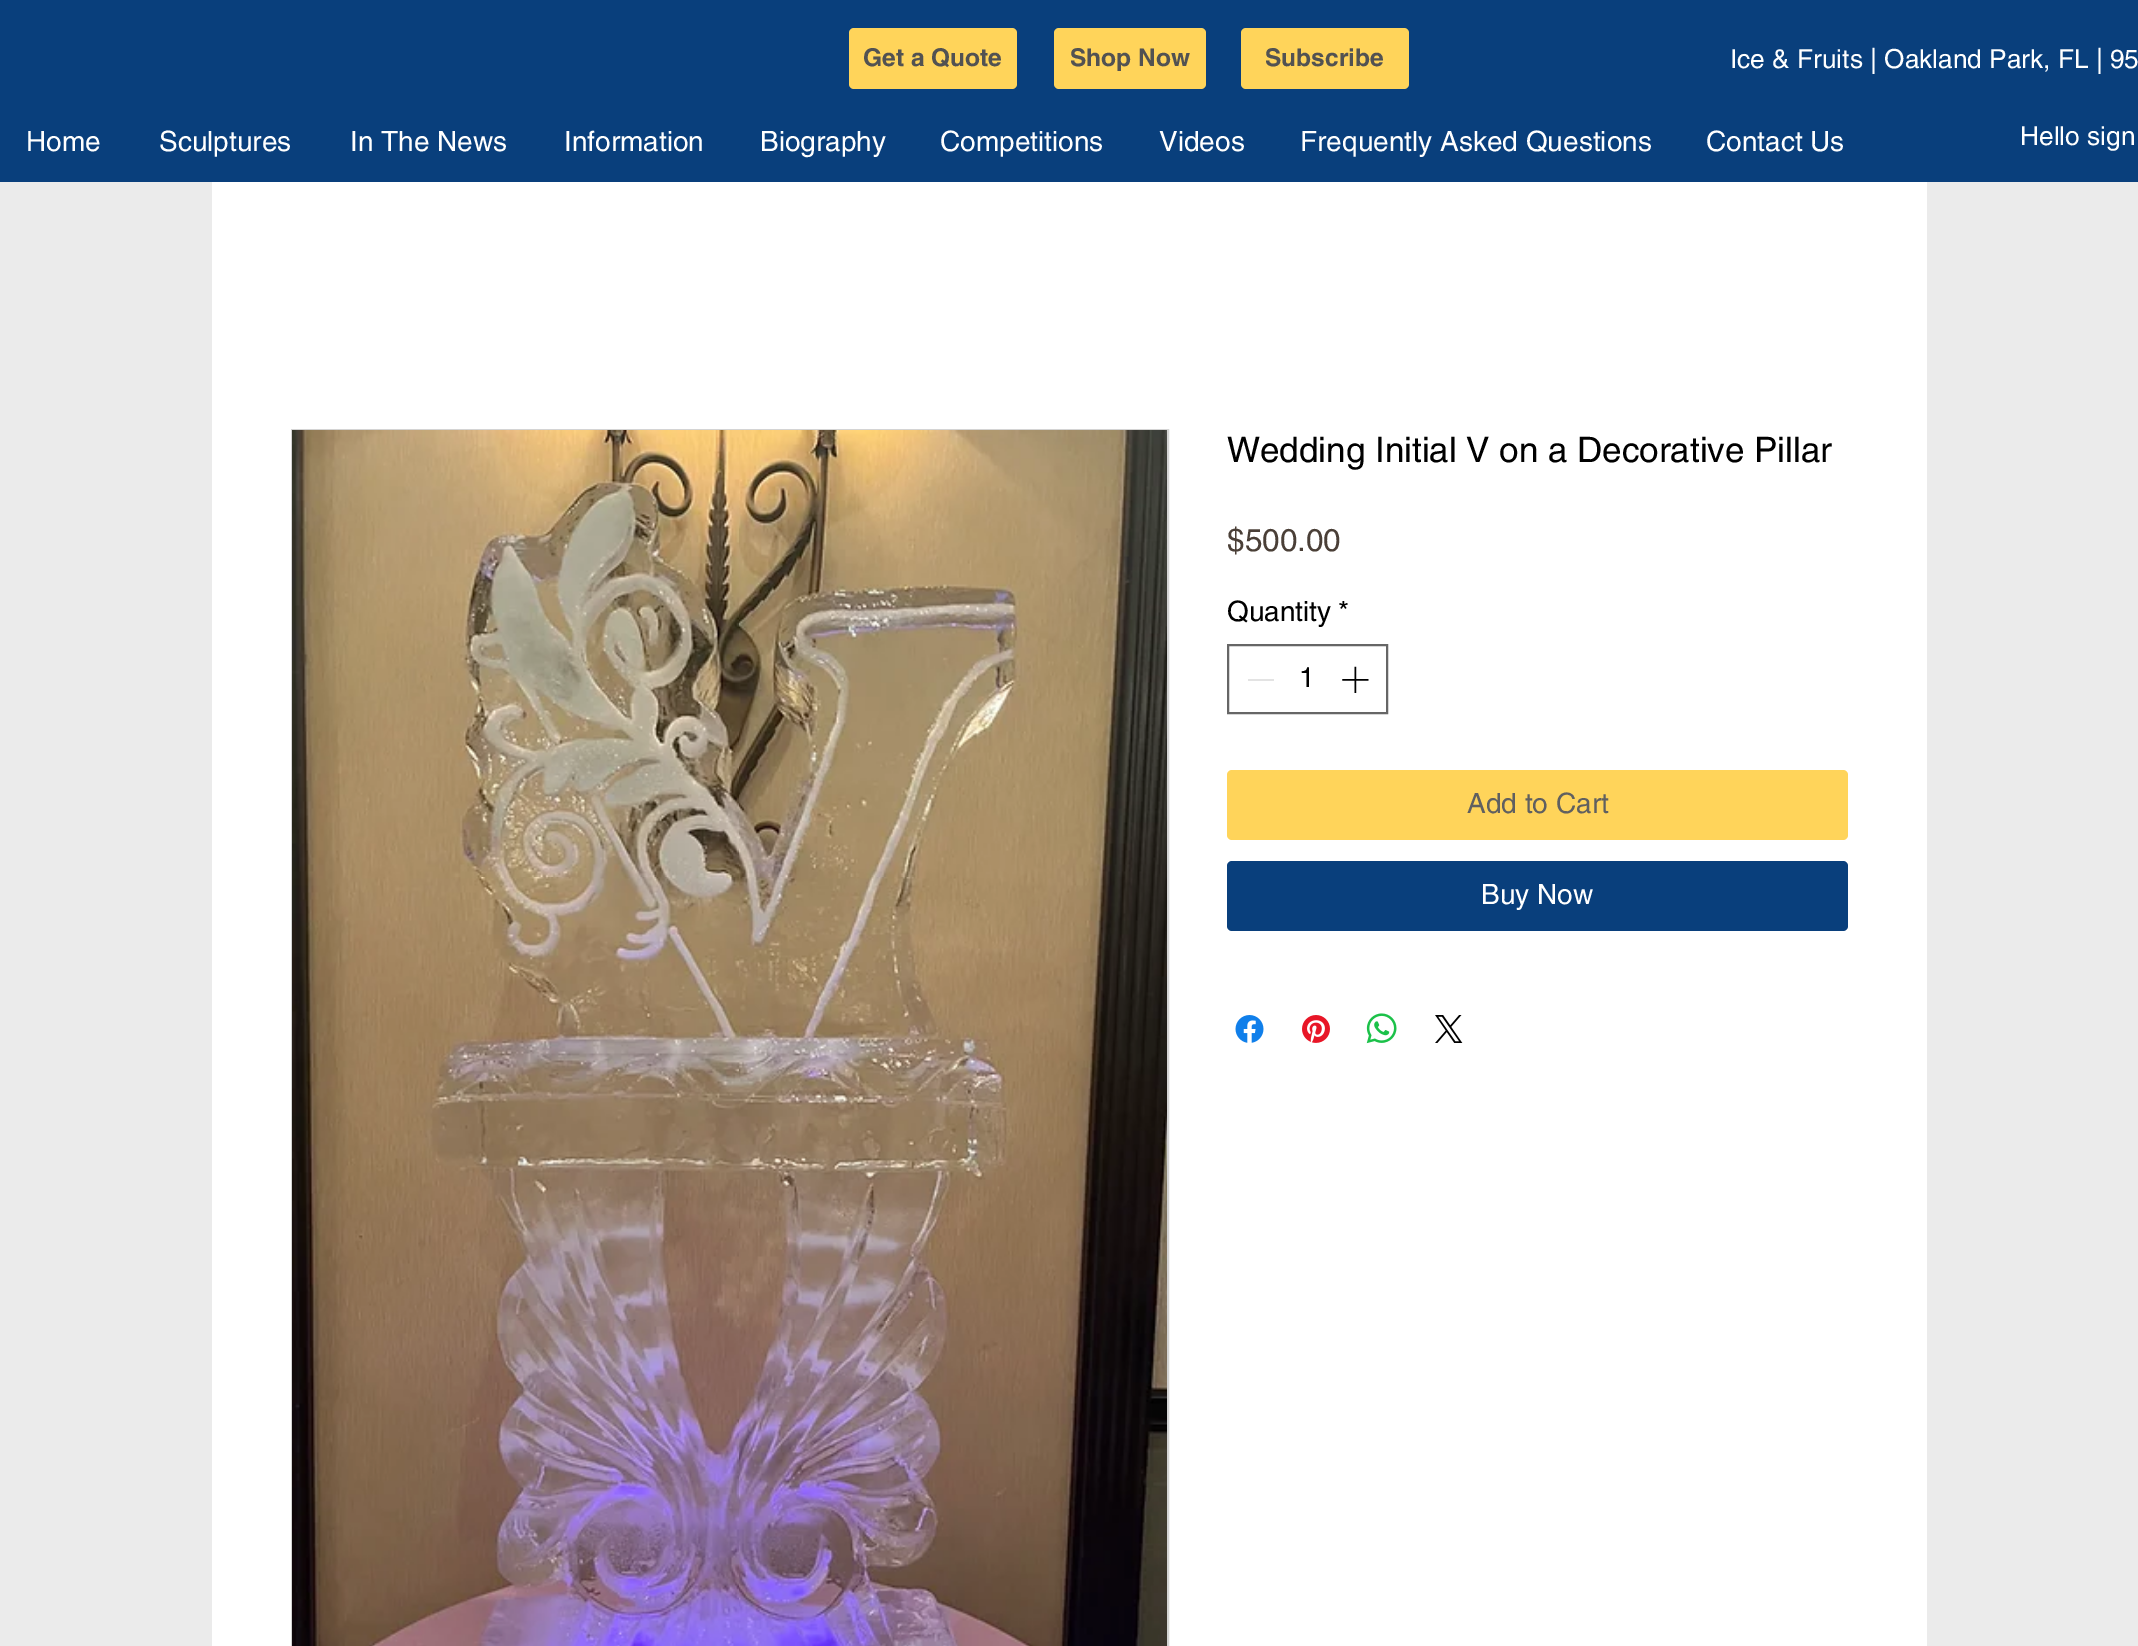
%!PS
<< /PageSize [2138 1646] >> setpagedevice
/fl/fill load def
/lw/setlinewidth load def
/co { dup -16 bitshift 255 div exch dup -8 bitshift 255 and 255 div exch 255 and 255 div setrgbcolor } def
/fn { [ exch dup neg 0 0 3 -1 roll 0 0 ] selectfont } def
/tx { co fn moveto show } def
/bx { co rectfill } def
/rr { 5 dict begin { /r /h /w /y /x } { exch def } forall
  x r add y moveto x w add y 2 copy h add r arct x w add y h add x 1 index r arct
  x y h add x y r arct x y 2 copy exch w add exch r arct closepath end } def
/im { 5 dict begin { /h /w /y /x /name } { exch def } forall
  gsave x y translate w h scale
  w h 8 [w 0 0 h 0 0] name (r) file false 3 colorimage grestore end } def
0 1646 translate 1 -1 scale
4 setmiterlimit
0 0 2138 1646 16#EBEBEB bx
0 0 2138 182 16#093F7C bx
16#FFD45A co
849 28 168 61 5 rr fl
1054 28 152 61 5 rr fl
1241 28 168 61 5 rr fl
212 182 1715 1464 16#FFFFFF bx
16#D4D4D4 co
2 lw
292 430 876 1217 rectstroke
(media/1.raw) 292 430 875 1216 im
16#666666 co
1228 645 159 68 rectstroke
1248 679 26 2 16#E3E3E3 bx
(media/2.raw) 1342 666 27 27 im
16#FFD45A co
1227 770 621 70 5 rr fl
16#093F7C co
1227 861 621 70 5 rr fl
(media/3.raw) 1235 1015 29 28 im
(media/4.raw) 1302 1015 28 28 im
(media/5.raw) 1366 1013 31 31 im
(media/6.raw) 1435 1015 28 28 im
(Get a Quote) 863 66 /helvetica-Bold 24.5 16#525252 tx
(Shop Now) 1070 66 /helvetica-Bold 24.5 16#525252 tx
(Subscribe) 1265 66 /helvetica-Bold 24.5 16#525252 tx
(Ice & Fruits | Oakland Park, FL | 95) 1730 68 /helvetica-Regular 26.25 16#FFFFFF tx
(Home) 26 151 /helvetica-Regular 28 16#FFFFFF tx
(Sculptures) 159 151 /helvetica-Regular 28 16#FFFFFF tx
(In The News) 350 151 /helvetica-Regular 28 16#FFFFFF tx
(Information) 564 151 /helvetica-Regular 28 16#FFFFFF tx
(Biography) 760 151 /helvetica-Regular 28 16#FFFFFF tx
(Competitions) 940 151 /helvetica-Regular 28 16#FFFFFF tx
(Videos) 1159 151 /helvetica-Regular 28 16#FFFFFF tx
(Frequently Asked Questions) 1300 151 /helvetica-Regular 28 16#FFFFFF tx
(Contact Us) 1706 151 /helvetica-Regular 28 16#FFFFFF tx
(Hello sign) 2020 145 /helvetica-Regular 26.25 16#FFFFFF tx
(Wedding Initial V on a Decorative Pillar) 1227 462 /helvetica-Regular 35 16#000000 tx
($500.00) 1227 551 /helvetica-Regular 31.5 16#4A3F37 tx
(Quantity) 1227 621 /helvetica-Regular 28 16#000000 tx
(*) 1338 621 /helvetica-Regular 28 16#000000 tx
(1) 1299 687 /helvetica-Regular 28 16#000000 tx
(Add to Cart) 1467 813 /helvetica-Regular 28 16#606060 tx
(Buy Now) 1481 904 /helvetica-Regular 28 16#FFFFFF tx
showpage
